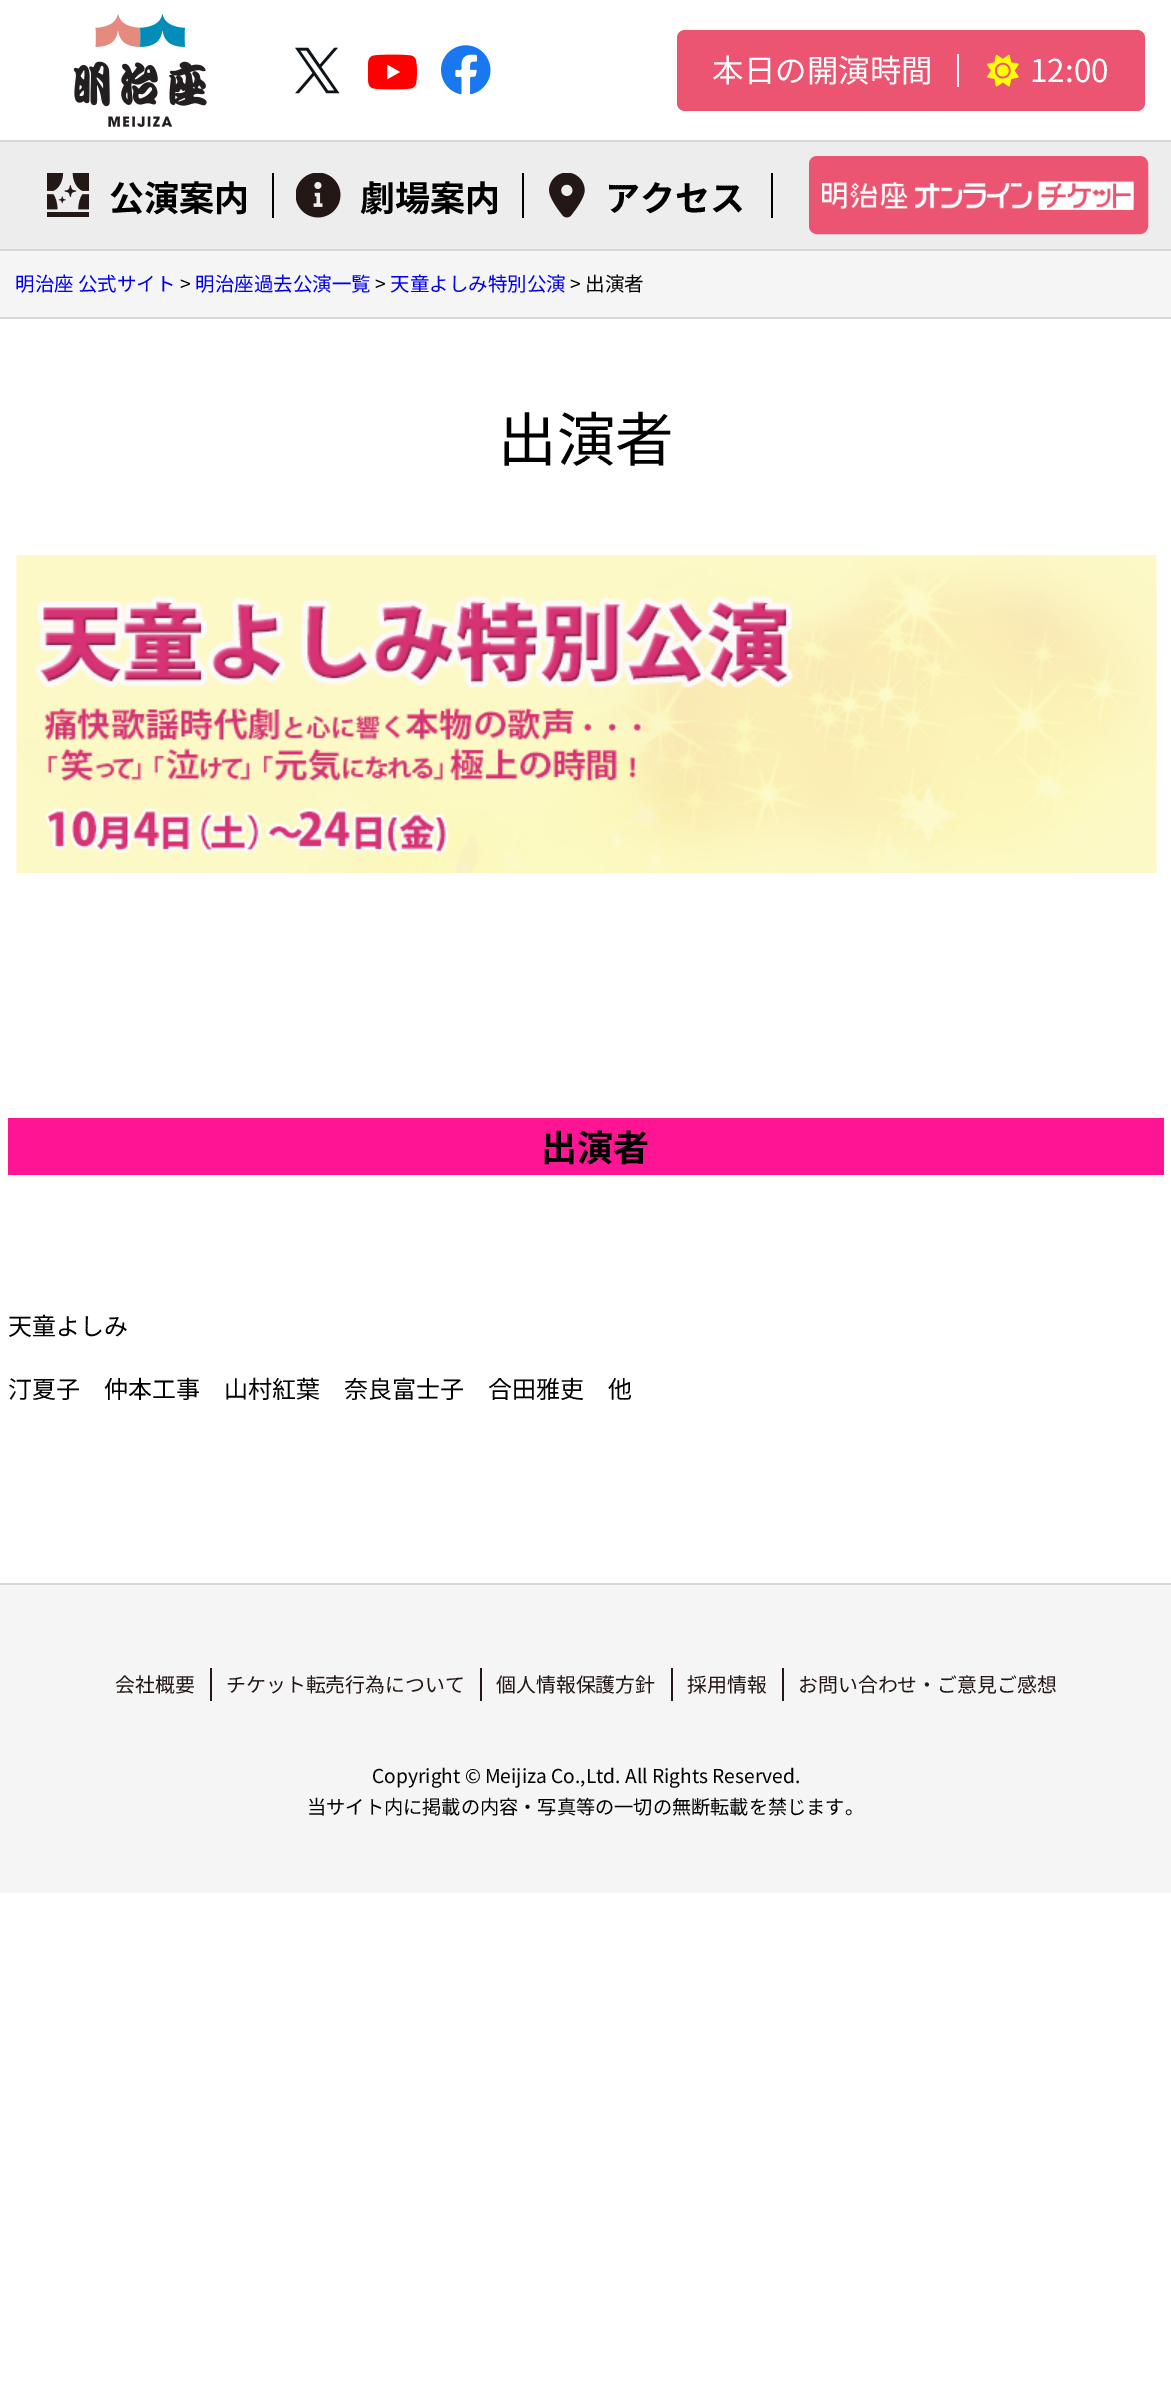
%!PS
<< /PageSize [1171 2400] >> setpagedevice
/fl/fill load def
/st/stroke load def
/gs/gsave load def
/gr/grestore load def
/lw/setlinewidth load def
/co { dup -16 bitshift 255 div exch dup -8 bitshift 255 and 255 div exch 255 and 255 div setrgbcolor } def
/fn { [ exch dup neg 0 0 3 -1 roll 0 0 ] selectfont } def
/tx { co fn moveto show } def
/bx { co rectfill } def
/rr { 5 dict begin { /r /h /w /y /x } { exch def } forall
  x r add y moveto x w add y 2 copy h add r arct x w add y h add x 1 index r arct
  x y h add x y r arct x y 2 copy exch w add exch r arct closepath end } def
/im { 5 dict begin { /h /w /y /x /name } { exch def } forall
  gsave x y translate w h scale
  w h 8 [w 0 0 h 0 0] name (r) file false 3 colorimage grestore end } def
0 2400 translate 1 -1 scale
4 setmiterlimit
0 0 1171 2400 16#FFFFFF bx
(media/1.raw) 73 14 134 113 im
(media/2.raw) 295 47 45 47 im
(media/3.raw) 368 54 49 36 im
(media/4.raw) 441 45 50 50 im
16#EC5571 co
677 30 468 81 8 rr fl
957 54 2 33 16#FFFFFF bx
(media/5.raw) 987 54 32 33 im
0 142 1171 107 16#EDEDED bx
0 140 1171 2 16#D7D7D7 bx
0 249 1171 2 16#D7D7D7 bx
272 173 2 45 16#000000 bx
(media/6.raw) 47 173 42 44 im
522 173 2 45 16#000000 bx
(media/7.raw) 296 173 45 45 im
771 173 2 45 16#000000 bx
(media/8.raw) 549 173 36 45 im
16#EC5571 co
810 157 337 76 7 rr gs fl gr
2 lw
st
(media/9.raw) 822 181 312 29 im
0 251 1171 66 16#F5F5F5 bx
0 317 1171 2 16#D7D7D7 bx
(media/10.raw) 16 555 1141 318 im
8 1118 1156 57 16#FF1493 bx
0 1585 1171 308 16#F5F5F5 bx
0 1583 1171 2 16#D7D7D7 bx
210 1668 2 33 16#231815 bx
480 1668 2 33 16#231815 bx
671 1668 2 33 16#231815 bx
782 1668 2 33 16#231815 bx
(本日の開演時間) 712 82 /NotoSansJP-Regular 31.5 16#FFFFFF tx
(12:00) 1030 82 /NotoSansJP-Regular 31.5 16#FFFFFF tx
(公演案内) 109 211 /NotoSansJP-Bold 35 16#000000 tx
(劇場案内) 360 211 /NotoSansJP-Bold 35 16#000000 tx
(アクセス) 605 211 /NotoSansJP-Bold 35 16#000000 tx
(明治座 公式サイト) 15 291 /NotoSansJP-Regular 19.5 16#0000EE tx
(>) 180 291 /NotoSansJP-Regular 19.5 16#000000 tx
(明治座過去公演一覧) 195 291 /NotoSansJP-Regular 19.5 16#0000EE tx
(>) 375 291 /NotoSansJP-Regular 19.5 16#000000 tx
(天童よしみ特別公演) 390 291 /NotoSansJP-Regular 19.5 16#0000EE tx
(> 出演者) 570 291 /NotoSansJP-Regular 19.5 16#000000 tx
(出演者) 498 461 /NotoSansJP-Regular 58.5 16#000000 tx
(出演者) 541 1161 /NotoSansJP-Bold 36 16#000000 tx
(天童よしみ) 8 1335 /NotoSansJP-Regular 24 16#000000 tx
(汀夏子　仲本工事　山村紅葉　奈良富士子　合田雅吏　他) 8 1398 /NotoSansJP-Regular 24 16#000000 tx
(会社概要) 115 1692 /NotoSansJP-Regular 19.9 16#231815 tx
(チケット転売行為について) 226 1692 /NotoSansJP-Regular 19.9 16#231815 tx
(個人情報保護方針) 496 1692 /NotoSansJP-Regular 19.9 16#231815 tx
(採用情報) 687 1692 /NotoSansJP-Regular 19.9 16#231815 tx
(お問い合わせ・ご意見ご感想) 798 1692 /NotoSansJP-Regular 19.9 16#231815 tx
(Copyright © Meijiza Co.,Ltd. All Rights Reserved.) 372 1783 /NotoSansJP-Regular 19.2 16#000000 tx
(当サイト内に掲載の内容・写真等の一切の無断転載を禁じます。) 307 1814 /NotoSansJP-Regular 19.2 16#000000 tx
showpage
